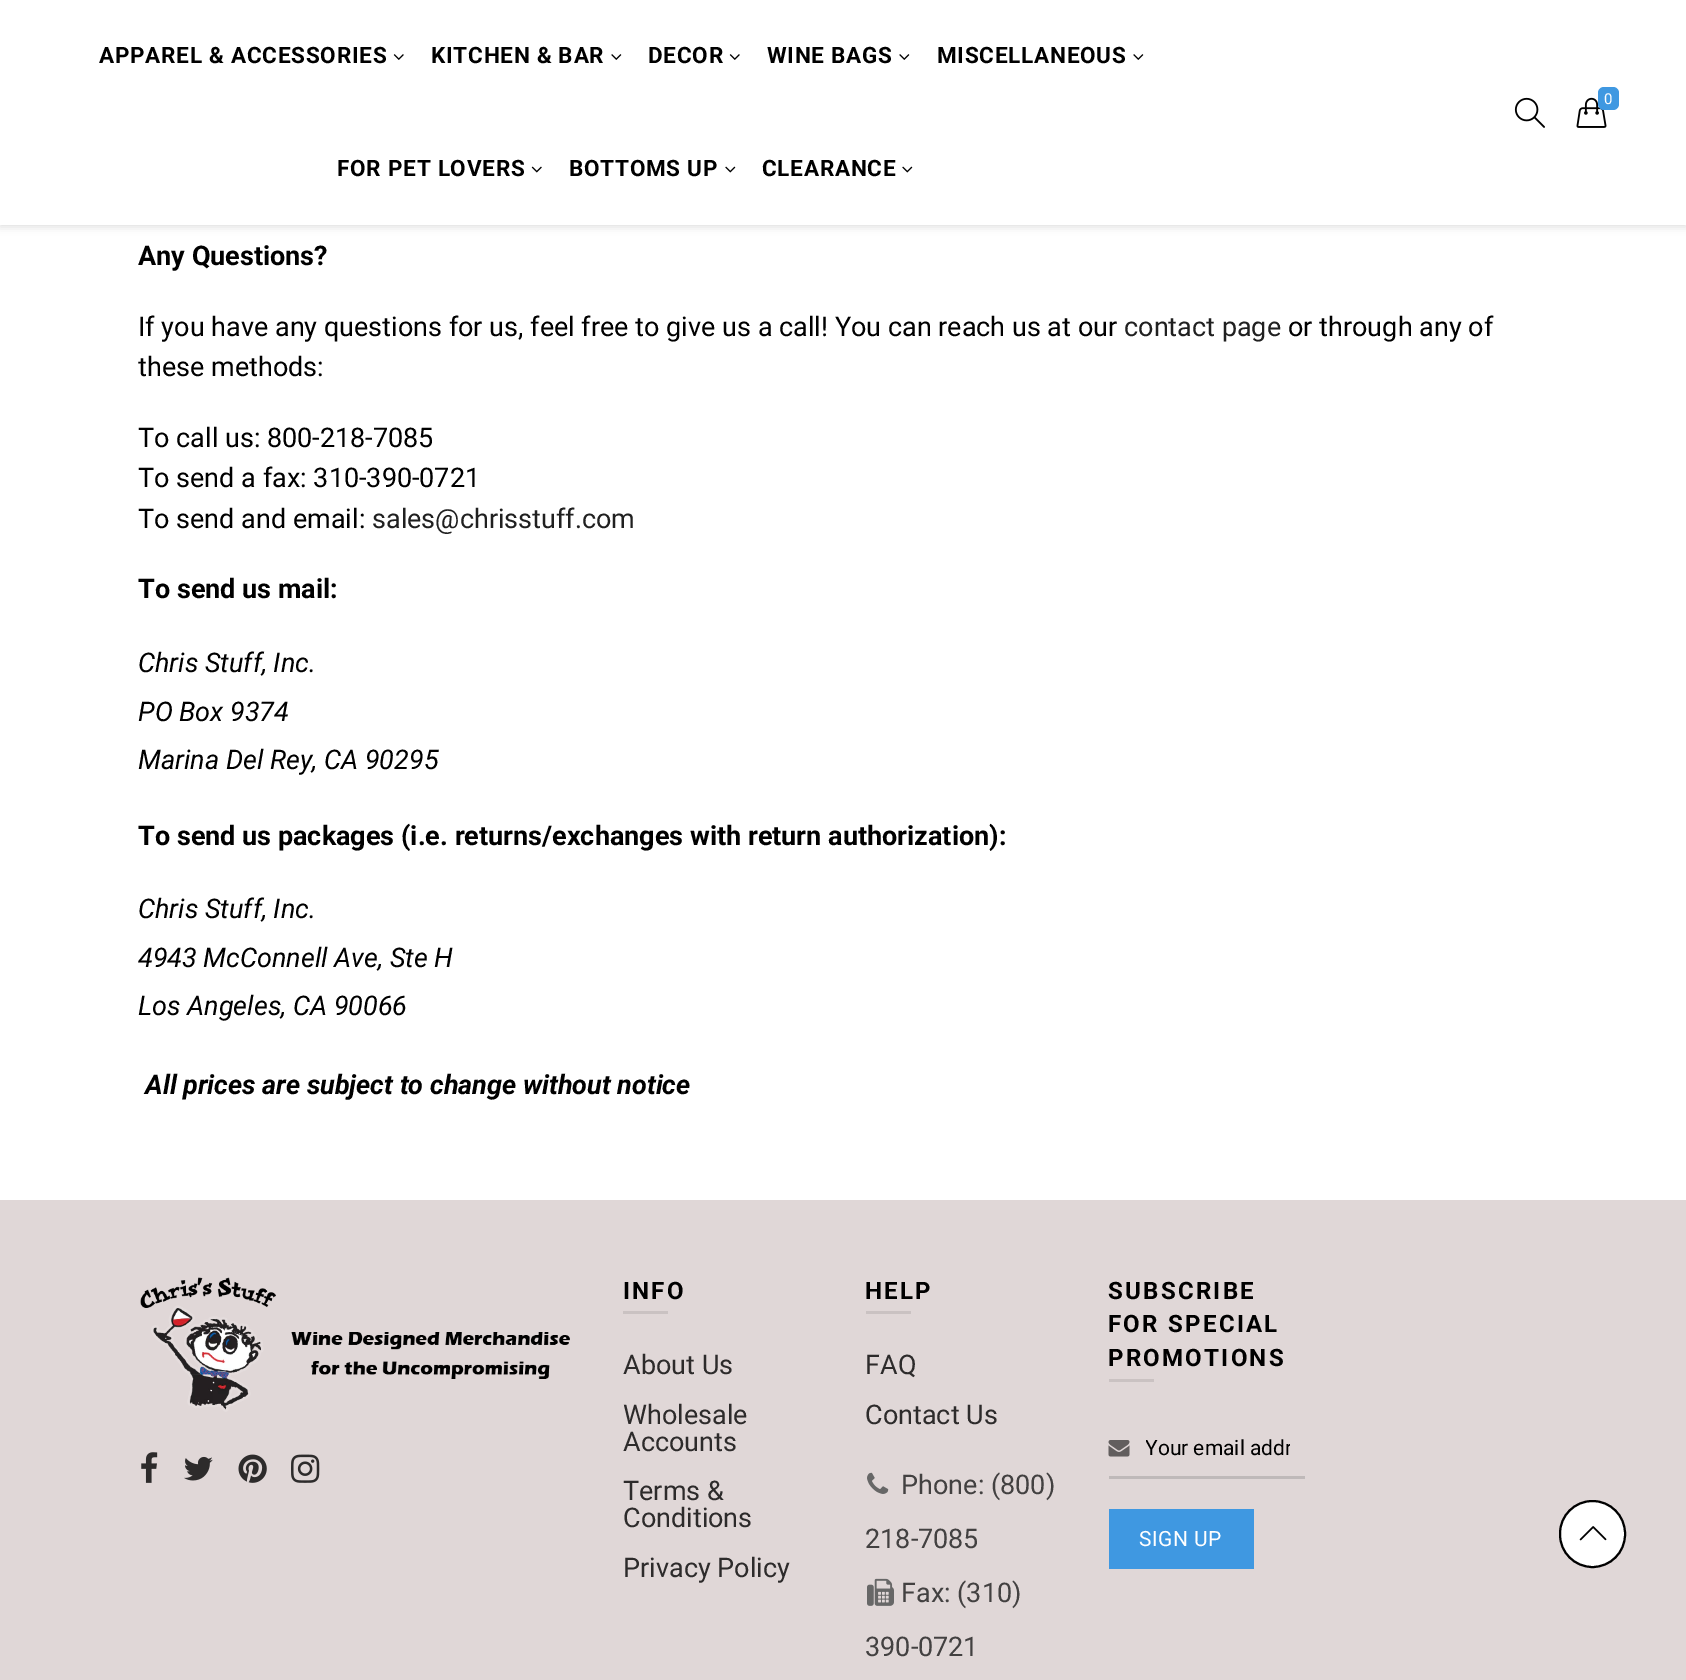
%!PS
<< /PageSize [1686 1680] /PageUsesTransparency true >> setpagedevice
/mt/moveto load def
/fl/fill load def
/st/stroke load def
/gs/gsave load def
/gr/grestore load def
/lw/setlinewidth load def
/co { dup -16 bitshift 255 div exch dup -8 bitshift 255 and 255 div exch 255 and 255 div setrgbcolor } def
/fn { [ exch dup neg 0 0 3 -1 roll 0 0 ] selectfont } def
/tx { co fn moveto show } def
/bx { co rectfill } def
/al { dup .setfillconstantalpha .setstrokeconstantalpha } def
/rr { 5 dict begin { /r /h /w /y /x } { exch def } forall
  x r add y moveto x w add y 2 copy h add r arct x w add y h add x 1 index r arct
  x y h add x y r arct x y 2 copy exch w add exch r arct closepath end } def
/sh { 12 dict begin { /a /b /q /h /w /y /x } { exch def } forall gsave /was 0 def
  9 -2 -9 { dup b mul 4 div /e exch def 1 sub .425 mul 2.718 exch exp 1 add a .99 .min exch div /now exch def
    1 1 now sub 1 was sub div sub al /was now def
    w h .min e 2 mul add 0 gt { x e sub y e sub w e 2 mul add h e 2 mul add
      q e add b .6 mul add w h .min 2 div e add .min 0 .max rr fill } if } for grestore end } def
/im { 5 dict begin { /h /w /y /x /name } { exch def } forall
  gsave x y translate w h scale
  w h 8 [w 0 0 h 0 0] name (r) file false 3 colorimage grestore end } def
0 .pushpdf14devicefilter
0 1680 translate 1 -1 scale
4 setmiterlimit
0 0 1686 1680 16#FFFFFF bx
16#BEBEBE co
0 2 1686 225 0 4 .5 sh
0 0 1686 225 16#FFFFFF bx
(media/1.raw) 393 54 11 6 im
(media/2.raw) 611 54 11 6 im
(media/1.raw) 729 54 11 6 im
(media/2.raw) 899 54 11 6 im
(media/2.raw) 1133 54 11 6 im
(media/3.raw) 531 166 11 7 im
(media/4.raw) 725 166 11 7 im
(media/4.raw) 902 166 11 7 im
(media/5.raw) 1514 97 31 31 im
(media/6.raw) 1576 97 31 31 im
16#3F98E1 co
1598 87 21 23 6 rr fl
0 1200 1686 480 16#E0D7D7 bx
(media/7.raw) 140 1277 430 135 im
(media/8.raw) 141 1452 17 31 im
(media/9.raw) 184 1456 29 25 im
(media/10.raw) 238 1454 29 29 im
(media/11.raw) 291 1454 29 29 im
623 1311 45 3 16#CAC2C2 bx
866 1311 45 3 16#CAC2C2 bx
(media/12.raw) 867 1472 22 22 im
(media/13.raw) 867 1578 27 28 im
1109 1379 45 3 16#CAC2C2 bx
(media/14.raw) 1108 1440 22 17 im
1109 1476 196 3 16#BFB9B9 bx
1109 1509 145 60 16#3F98E1 bx
16#FFFFFF co
1560 1501 65 66 32.5 rr gs fl gr
16#000000 co
2 lw
st
(media/15.raw) 1579 1526 28 15 im
/Roboto-Bold 22.5 fn
99 63 mt .75 0 (APPAREL & ACCESSORIES) ashow
431 63 mt .75 0 (KITCHEN & BAR) ashow
648 63 mt .75 0 (DECOR) ashow
767 63 mt .75 0 (WINE BAGS) ashow
937 63 mt .75 0 (MISCELLANEOUS) ashow
337 176 mt .75 0 (FOR PET LOVERS) ashow
569 176 mt .75 0 (BOTTOMS UP) ashow
762 176 mt .75 0 (CLEARANCE) ashow
(0) 1604 104 /Roboto-Regular 15 16#FFFFFF tx
(Any Questions?) 138 265 /Roboto-Bold 27 16#000000 tx
(If you have any questions for us, feel free to give us a call! You can reach us at our) 138 336 /Roboto-Regular 27 16#000000 tx
(contact page) 1124 336 /Roboto-Regular 27 16#202020 tx
(or through any of) 1288 336 /Roboto-Regular 27 16#000000 tx
(these methods:) 138 376 /Roboto-Regular 27 16#000000 tx
(To call us: 800-218-7085) 138 447 /Roboto-Regular 27 16#000000 tx
(To send a fax: 310-390-0721) 138 487 /Roboto-Regular 27 16#000000 tx
(To send and email:) 138 528 /Roboto-Regular 27 16#000000 tx
(sales@chrisstuff.com) 372 528 /Roboto-Regular 27 16#202020 tx
(To send us mail:) 138 598 /Roboto-Bold 27 16#000000 tx
(Chris Stuff, Inc.) 138 672 /Roboto-Italic 27 16#000000 tx
(PO Box 9374) 138 721 /Roboto-Italic 27 16#000000 tx
(Marina Del Rey, CA 90295) 138 769 /Roboto-Italic 27 16#000000 tx
(To send us packages \(i.e. returns/exchanges with return authorization\):) 138 845 /Roboto-Bold 27 16#000000 tx
(Chris Stuff, Inc.) 138 918 /Roboto-Italic 27 16#000000 tx
(4943 McConnell Ave, Ste H) 138 967 /Roboto-Italic 27 16#000000 tx
(Los Angeles, CA 90066) 138 1015 /Roboto-Italic 27 16#000000 tx
(All prices are subject to change without notice) 145 1094 /Roboto-BoldItalic 27 16#000000 tx
/Roboto-Bold 24 fn
623 1299 mt 2.25 0 (INFO) ashow
(About Us) 623 1374 /Roboto-Regular 27 16#2D2B2B tx
(Wholesale) 623 1424 /Roboto-Regular 27 16#2D2B2B tx
(Accounts) 623 1451 /Roboto-Regular 27 16#2D2B2B tx
(Terms &) 623 1500 /Roboto-Regular 27 16#2D2B2B tx
(Conditions) 623 1527 /Roboto-Regular 27 16#2D2B2B tx
(Privacy Policy) 623 1577 /Roboto-Regular 27 16#2D2B2B tx
/Roboto-Bold 24 fn
16#000000 co
865 1299 mt 2.25 0 (HELP) ashow
(FAQ) 865 1374 /Roboto-Regular 27 16#2D2B2B tx
(Contact Us) 865 1424 /Roboto-Regular 27 16#2D2B2B tx
(Phone: \(800\)) 901 1494 /Roboto-Regular 27 16#434141 tx
(218-7085) 865 1548 /Roboto-Regular 27 16#434141 tx
(Fax: \(310\)) 901 1602 /Roboto-Regular 27 16#434141 tx
(390-0721) 865 1656 /Roboto-Regular 27 16#434141 tx
/Roboto-Bold 24 fn
16#000000 co
1108 1299 mt 2.25 0 (SUBSCRIBE) ashow
1108 1332 mt 2.25 0 (FOR SPECIAL) ashow
1108 1366 mt 2.25 0 (PROMOTIONS) ashow
gs
1146 1436 144 24 rectclip
(Your email addr) 1145 1455 /Roboto-Regular 21 16#000000 tx
gr
/Roboto-Regular 21 fn
16#FFFFFF co
1139 1546 mt .5 0 (SIGN UP) ashow
.poppdf14devicefilter showpage
